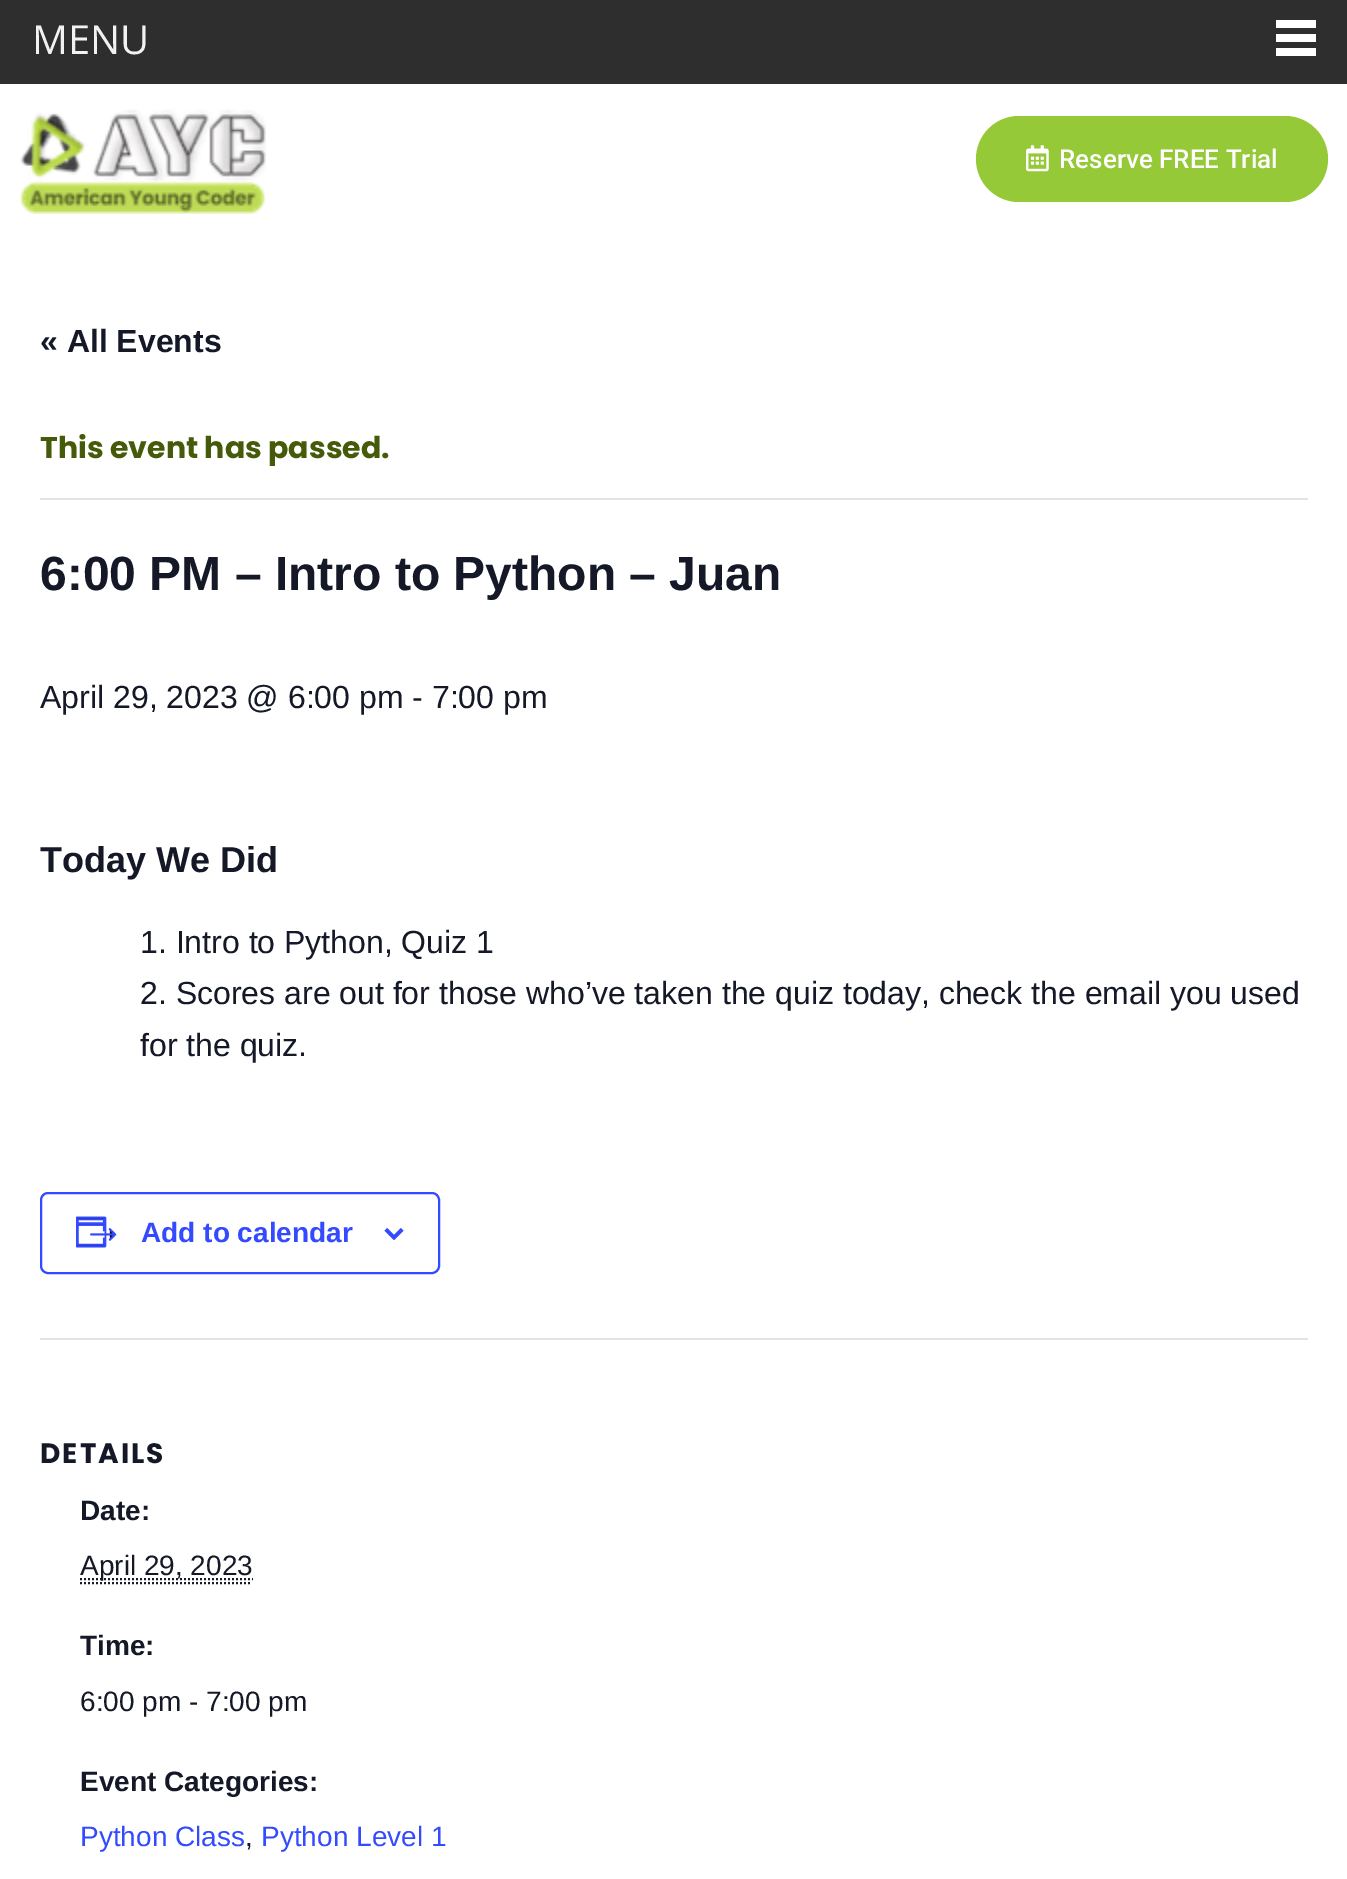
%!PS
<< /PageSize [1347 1879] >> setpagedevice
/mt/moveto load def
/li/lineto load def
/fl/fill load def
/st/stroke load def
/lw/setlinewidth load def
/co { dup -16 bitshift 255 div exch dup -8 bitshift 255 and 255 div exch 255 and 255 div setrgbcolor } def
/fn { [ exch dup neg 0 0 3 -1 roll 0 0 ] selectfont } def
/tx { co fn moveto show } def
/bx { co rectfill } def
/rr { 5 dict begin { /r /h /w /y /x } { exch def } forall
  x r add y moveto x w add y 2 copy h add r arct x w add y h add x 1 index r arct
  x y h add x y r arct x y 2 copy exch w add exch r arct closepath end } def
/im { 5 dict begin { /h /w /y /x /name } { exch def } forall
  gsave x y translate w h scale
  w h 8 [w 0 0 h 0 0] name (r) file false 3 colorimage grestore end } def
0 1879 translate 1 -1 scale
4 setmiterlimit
0 0 1347 1879 16#FFFFFF bx
0 0 1347 84 16#2E2E2E bx
1276 20 40 8 16#FFFFFF bx
1276 34 40 8 16#FFFFFF bx
1276 48 40 8 16#FFFFFF bx
(media/1.raw) 20 109 246 105 im
16#95C937 co
976 116 352 86 43 rr fl
(media/2.raw) 1026 145 23 27 im
40 498 1268 2 16#E4E4E4 bx
16#334AFF co
2 lw
41 1193 398 80 7 rr st
(media/3.raw) 76 1216 41 32 im
(media/4.raw) 384 1228 20 12 im
40 1338 1268 2 16#E4E4E4 bx
16#141827 co
[2 2] 0 setdash
80 1583 mt 252 1583 li st
80 1579 mt 253 1579 li st
(MENU) 32 54 /OpenSans-Regular 40 16#F2F2F2 tx
(Reserve FREE Trial) 1059 168 /Roboto-Medium 26 16#FFFFFF tx
(« All Events) 40 352 /LiberationSans-Bold 32 16#141827 tx
(This event has passed.) 40 458 /Poppins-Bold 30 16#455B09 tx
(6:00 PM – Intro to Python – Juan) 40 590 /LiberationSans-Bold 48 16#141827 tx
(April 29, 2023 @ 6:00 pm - 7:00 pm) 40 708 /LiberationSans-Regular 32 16#141827 tx
(Today We Did) 40 872 /LiberationSans-Bold 36 16#141827 tx
(1. Intro to Python, Quiz 1) 140 953 /LiberationSans-Regular 32 16#141827 tx
(2. Scores are out for those who’ve taken the quiz today, check the email you used) 140 1004 /LiberationSans-Regular 32 16#141827 tx
(for the quiz.) 140 1056 /LiberationSans-Regular 32 16#141827 tx
(Add to calendar) 141 1242 /LiberationSans-Bold 28 16#334AFF tx
/Poppins-Bold 28 fn
16#141827 co
40 1463 mt 2 0 (DETAILS) ashow
(Date:) 80 1520 /LiberationSans-Bold 28 16#141827 tx
(April 29, 2023) 80 1575 /LiberationSans-Regular 28 16#141827 tx
(Time:) 80 1655 /LiberationSans-Bold 28 16#141827 tx
(6:00 pm - 7:00 pm) 80 1711 /LiberationSans-Regular 28 16#141827 tx
(Event Categories:) 80 1791 /LiberationSans-Bold 28 16#141827 tx
(Python Class) 80 1846 /LiberationSans-Regular 28 16#334AFF tx
(,) 245 1846 /LiberationSans-Regular 28 16#141827 tx
(Python Level 1) 261 1846 /LiberationSans-Regular 28 16#334AFF tx
showpage
